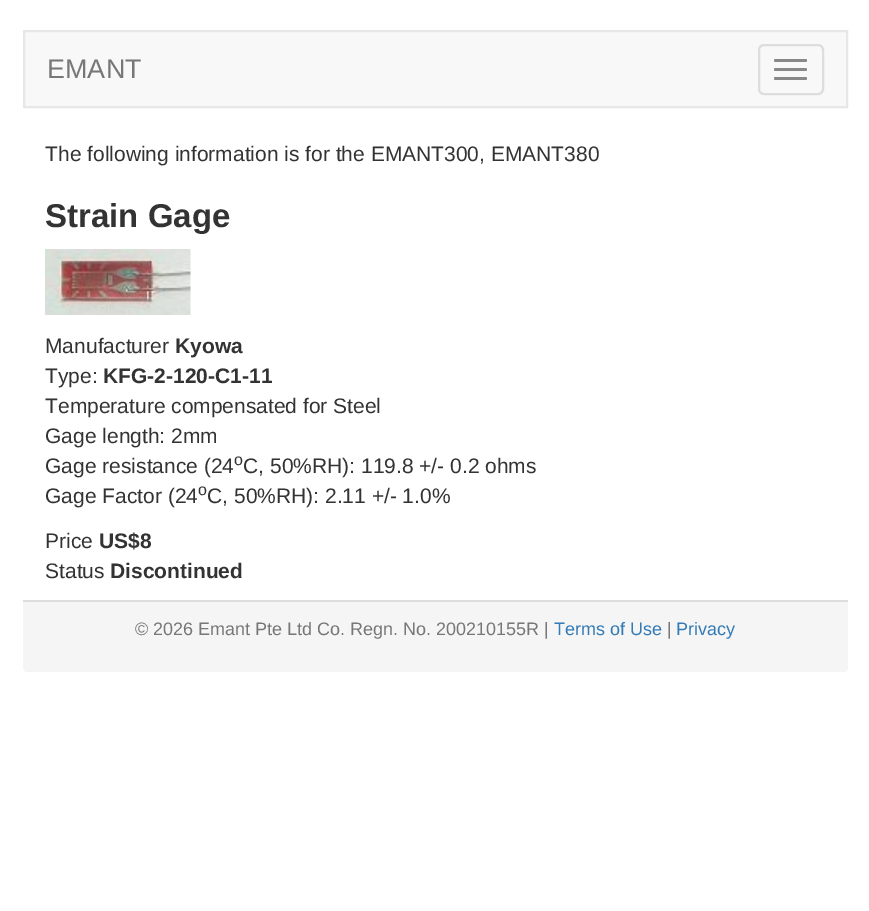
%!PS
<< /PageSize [869 911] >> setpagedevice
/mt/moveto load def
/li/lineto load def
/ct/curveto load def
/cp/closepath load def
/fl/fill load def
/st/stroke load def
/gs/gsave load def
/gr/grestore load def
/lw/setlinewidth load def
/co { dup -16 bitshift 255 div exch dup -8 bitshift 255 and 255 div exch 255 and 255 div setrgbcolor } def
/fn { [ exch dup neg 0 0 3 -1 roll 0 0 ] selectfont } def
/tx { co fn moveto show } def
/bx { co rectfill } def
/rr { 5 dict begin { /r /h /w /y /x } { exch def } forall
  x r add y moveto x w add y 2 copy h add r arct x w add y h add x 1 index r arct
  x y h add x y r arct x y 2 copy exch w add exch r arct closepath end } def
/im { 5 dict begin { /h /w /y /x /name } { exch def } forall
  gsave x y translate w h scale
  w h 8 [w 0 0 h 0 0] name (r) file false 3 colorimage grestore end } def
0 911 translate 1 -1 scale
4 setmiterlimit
0 0 869 911 16#FFFFFF bx
16#F8F8F8 co
24 31 mt 847 31 li 847 107 li 24 107 li cp gs fl gr
16#E7E7E7 co
2 lw
st
16#DDDDDD co
759 45 64 49 5 rr st
16#888888 co
774 59 33 3 1.5 rr fl
774 68 33 3 1.5 rr fl
774 77 33 3 1.5 rr fl
(media/1.raw) 45 249 146 66 im
16#F5F5F5 co
23 600 mt 848 600 li 848 667 li 848 670 846 672 843 672 ct 28 672 li 25 672 23 670 23 667 ct cp fl
23 600 825 2 16#DDDDDD bx
(EMANT) 47 78 /LiberationSans-Regular 27 16#777777 tx
(The following information is for the EMANT300, EMANT380) 45 161 /LiberationSans-Regular 21 16#333333 tx
(Strain Gage) 45 227 /LiberationSans-Bold 33 16#333333 tx
(Manufacturer) 45 353 /LiberationSans-Regular 21 16#333333 tx
(Kyowa) 175 353 /LiberationSans-Bold 21 16#333333 tx
(Type:) 45 383 /LiberationSans-Regular 21 16#333333 tx
(KFG-2-120-C1-11) 103 383 /LiberationSans-Bold 21 16#333333 tx
(Temperature compensated for Steel) 45 413 /LiberationSans-Regular 21 16#333333 tx
(Gage length: 2mm) 45 443 /LiberationSans-Regular 21 16#333333 tx
(Gage resistance \(24) 45 473 /LiberationSans-Regular 21 16#333333 tx
(o) 234 465 /LiberationSans-Regular 16 16#333333 tx
(C, 50%RH\): 119.8 +/- 0.2 ohms) 243 473 /LiberationSans-Regular 21 16#333333 tx
(Gage Factor \(24) 45 503 /LiberationSans-Regular 21 16#333333 tx
(o) 198 495 /LiberationSans-Regular 16 16#333333 tx
(C, 50%RH\): 2.11 +/- 1.0%) 207 503 /LiberationSans-Regular 21 16#333333 tx
(Price) 45 548 /LiberationSans-Regular 21 16#333333 tx
(US$8) 99 548 /LiberationSans-Bold 21 16#333333 tx
(Status) 45 578 /LiberationSans-Regular 21 16#333333 tx
(Discontinued) 110 578 /LiberationSans-Bold 21 16#333333 tx
(© 2026 Emant Pte Ltd Co. Regn. No. 200210155R |) 135 635 /LiberationSans-Regular 18 16#777777 tx
(Terms of Use) 554 635 /LiberationSans-Regular 18 16#337AB7 tx
(|) 667 635 /LiberationSans-Regular 18 16#777777 tx
(Privacy) 676 635 /LiberationSans-Regular 18 16#337AB7 tx
showpage
